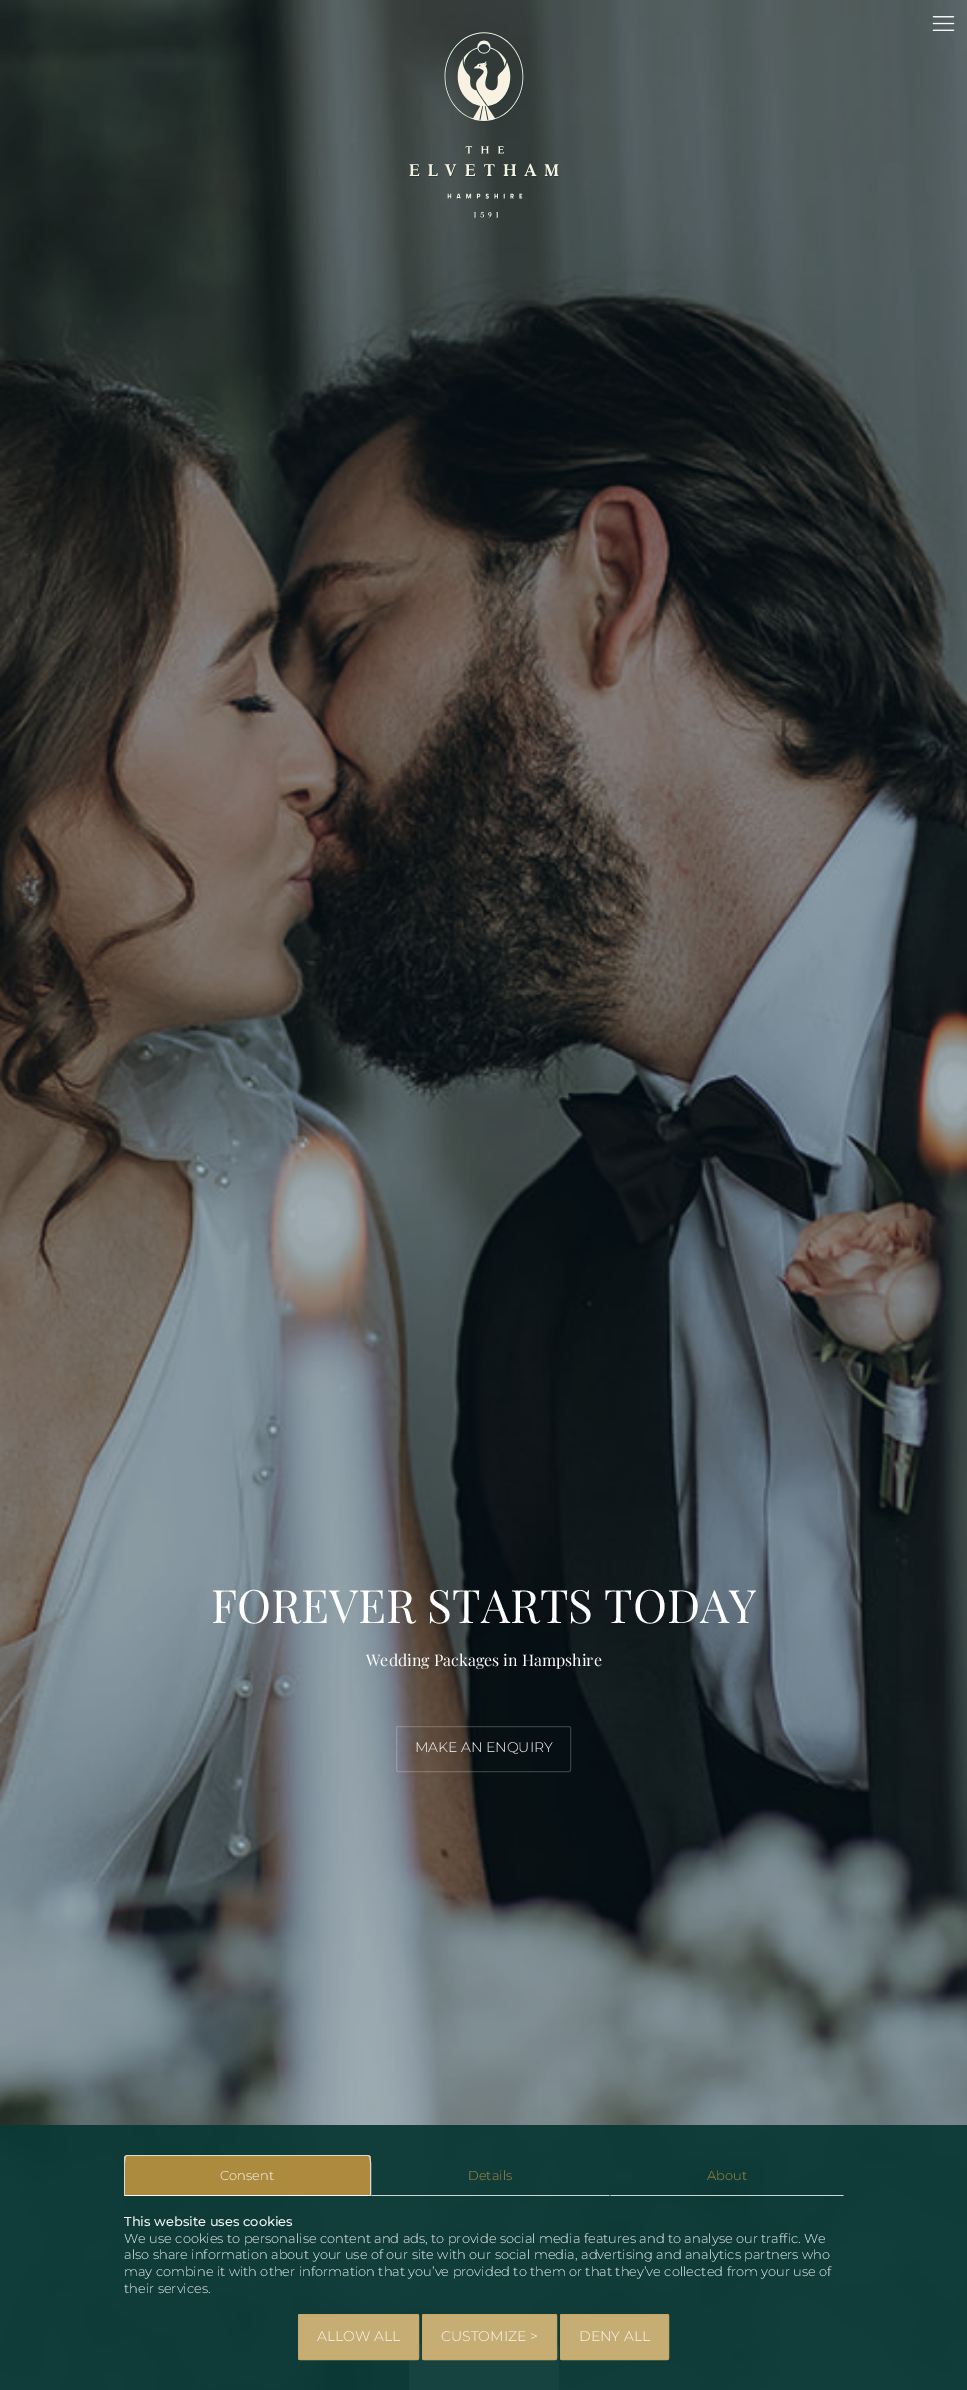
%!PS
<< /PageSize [967 2390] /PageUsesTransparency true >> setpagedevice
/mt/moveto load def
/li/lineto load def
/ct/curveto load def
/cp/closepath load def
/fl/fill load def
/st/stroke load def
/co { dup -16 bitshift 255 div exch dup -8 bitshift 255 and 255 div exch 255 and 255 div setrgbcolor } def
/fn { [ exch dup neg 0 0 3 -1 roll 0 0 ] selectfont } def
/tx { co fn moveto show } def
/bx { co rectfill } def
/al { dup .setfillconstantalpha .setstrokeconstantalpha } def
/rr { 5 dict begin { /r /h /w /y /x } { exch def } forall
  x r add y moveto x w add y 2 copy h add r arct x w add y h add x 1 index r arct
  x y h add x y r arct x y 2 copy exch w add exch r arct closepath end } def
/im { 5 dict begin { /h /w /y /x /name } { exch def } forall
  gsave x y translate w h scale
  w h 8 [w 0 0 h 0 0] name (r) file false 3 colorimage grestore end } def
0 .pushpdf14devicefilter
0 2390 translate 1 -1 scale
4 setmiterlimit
0 0 967 2390 16#FFFFFF bx
(media/3.raw) 0 0 967 2390 im
(media/1.raw) 932 16 23 15 im
(media/2.raw) 409 32 150 186 im
0.2 al
396.5 1726.5 174 45 1.5 rr st
1 al
414 2344 mt 554 2344 li 557 2344 559 2346 559 2349 ct 559 2390 li 409 2390 li 409 2349 li 409 2346 411 2344 414 2344 ct cp fl
0.95 al
0 2125 967 265 16#0A3835 bx
16#B58E3E co
127 2155 mt 368 2155 li 369.5 2155 371 2156.5 371 2158 ct 371 2196 li 124 2196 li 124 2158 li 124 2156.5 125.5 2155 127 2155 ct cp fl
16#DDDDDD co
127 2155 mt 125 2156 li 126 2157 li 127 2156 li 368 2156 li 369 2157 li 370 2156 li 368 2155 li cp fl
1 al
16#DADADB co
371 2196 mt 371 2191 372 2158 370 2156 ct 369 2157 li 371 2158 370 2190 370 2195 ct cp fl
0.95 al
16#FFFFFF co
371 2196 mt 370 2195 li 125 2195 li 124 2196 li cp fl
16#DDDDDD co
124 2196 mt 125 2195 li 125 2190 124 2158 126 2157 ct 125 2156 li 124 2158 li cp fl
610 2196 mt 609 2195 li 372 2195 li 371 2196 li cp fl
844 2196 mt 843 2195 li 611 2195 li 610 2196 li cp fl
16#D0B376 co
298 2314 121 46 2 rr fl
16#C9A863 co
298.5 2314.5 120 45 1.5 rr st
16#D0B376 co
422 2314 135 46 2 rr fl
16#C9A863 co
422.5 2314.5 134 45 1.5 rr st
16#D0B376 co
560 2314 109 46 2 rr fl
16#C9A863 co
560.5 2314.5 108 45 1.5 rr st
1 al
(FOREVER STARTS TODAY) 211 1623 /PlayfairDisplay-Regular 46 16#FFFFFF tx
(Wedding Packages in Hampshire) 366 1666 /PlayfairDisplay-Regular 16 16#FFFFFF tx
(MAKE AN ENQUIRY) 415 1752 /Montserrat-Light 14 16#FFFFFF tx
(Consent) 220 2180 /Montserrat-Light 13 16#FCFBF8 tx
(Details) 468 2180 /Montserrat-Light 13 16#AD8A3E tx
(About) 707 2180 /Montserrat-Light 13 16#AD8A3E tx
(This website uses cookies) 124 2226 /Montserrat-Medium 13 16#F3F5F5 tx
(We use cookies to personalise content and ads, to provide social media features and to analyse our traffic. We) 124 2243 /Montserrat-Light 13 16#F3F5F5 tx
(also share information about your use of our site with our social media, advertising and analytics partners who) 124 2259 /Montserrat-Light 13 16#F3F5F5 tx
(may combine it with other information that you’ve provided to them or that they’ve collected from your use of) 124 2276 /Montserrat-Light 13 16#F3F5F5 tx
(their services.) 124 2293 /Montserrat-Light 13 16#F3F5F5 tx
(ALLOW ALL) 317 2341 /Montserrat-Light 14 16#FCFBF8 tx
(CUSTOMIZE >) 441 2341 /Montserrat-Light 14 16#FCFBF8 tx
(DENY ALL) 579 2341 /Montserrat-Light 14 16#FCFBF8 tx
.poppdf14devicefilter showpage
